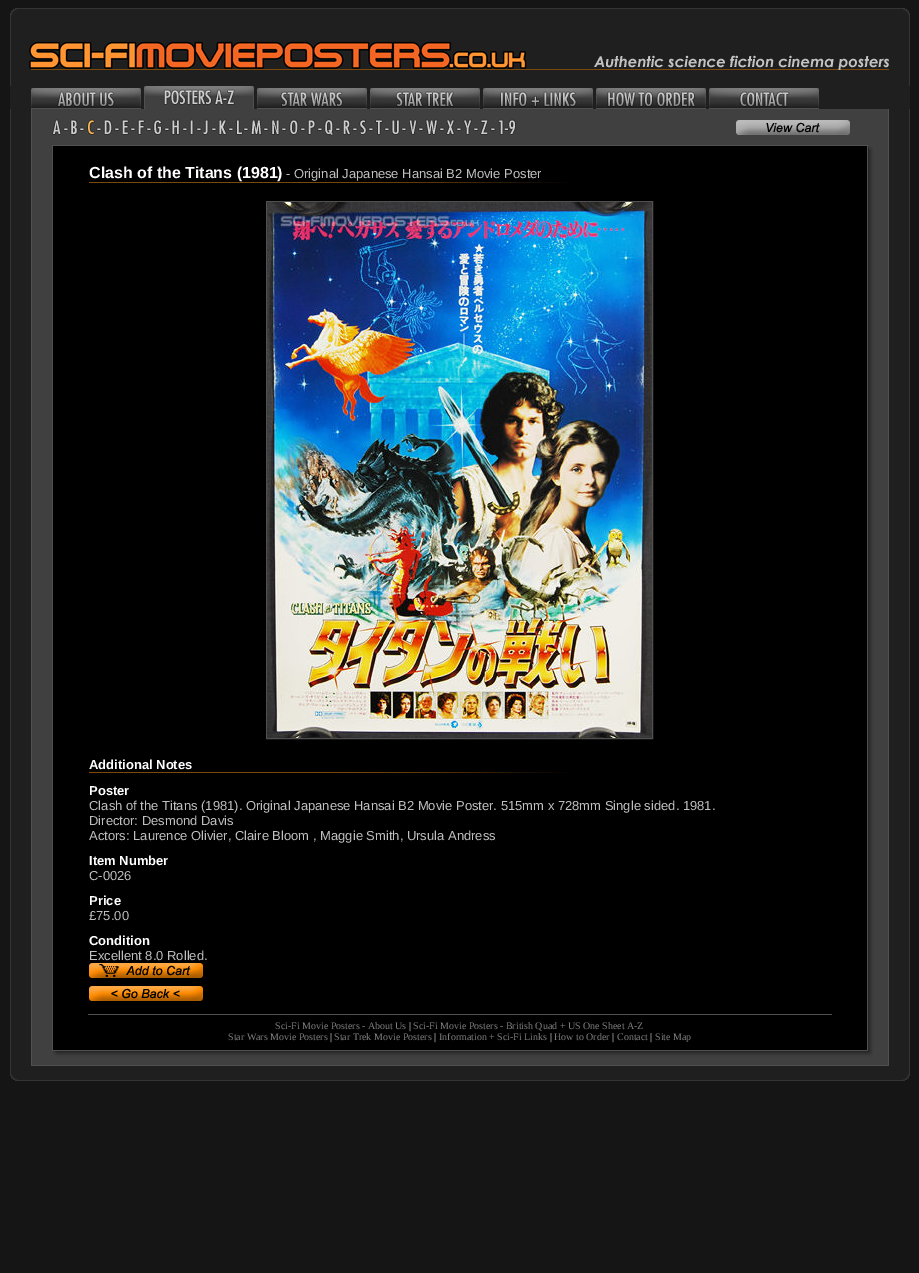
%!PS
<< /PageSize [919 1273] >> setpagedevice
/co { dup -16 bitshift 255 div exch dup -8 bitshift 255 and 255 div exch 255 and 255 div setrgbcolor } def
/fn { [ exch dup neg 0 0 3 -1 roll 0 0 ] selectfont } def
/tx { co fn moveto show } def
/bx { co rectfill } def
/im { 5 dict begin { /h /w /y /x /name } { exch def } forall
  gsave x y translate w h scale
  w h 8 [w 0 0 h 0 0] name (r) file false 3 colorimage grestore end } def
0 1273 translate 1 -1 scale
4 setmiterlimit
0 0 919 1273 16#151515 bx
(media/1.raw) 10 8 900 78 im
10 86 900 23 16#1F1F1F bx
(media/2.raw) 31 88 110 21 im
(media/3.raw) 144 86 110 23 im
(media/4.raw) 257 88 110 21 im
(media/5.raw) 370 88 110 21 im
(media/6.raw) 483 88 110 21 im
(media/7.raw) 596 88 110 21 im
(media/8.raw) 709 88 110 21 im
(media/9.raw) 10 109 600 55 im
(media/10.raw) 52 119 10 16 im
(media/11.raw) 63 127 6 4 im
(media/12.raw) 70 119 8 16 im
(media/11.raw) 79 127 6 4 im
(media/13.raw) 87 119 8 16 im
(media/11.raw) 96 127 6 4 im
(media/14.raw) 103 119 10 16 im
(media/11.raw) 114 127 6 4 im
(media/15.raw) 121 119 8 16 im
(media/11.raw) 130 127 6 4 im
(media/16.raw) 137 119 8 16 im
(media/11.raw) 146 127 6 4 im
(media/17.raw) 153 119 9 16 im
(media/11.raw) 164 127 6 4 im
(media/18.raw) 171 119 9 16 im
(media/11.raw) 182 127 6 4 im
(media/19.raw) 189 119 5 16 im
(media/11.raw) 196 127 6 4 im
(media/20.raw) 202 119 7 16 im
(media/11.raw) 211 127 6 4 im
(media/21.raw) 218 119 9 16 im
(media/11.raw) 228 127 6 4 im
(media/22.raw) 236 119 7 16 im
(media/11.raw) 243 127 6 4 im
(media/23.raw) 250 119 12 16 im
(media/11.raw) 263 127 6 4 im
(media/24.raw) 271 119 9 16 im
(media/11.raw) 281 127 6 4 im
(media/25.raw) 289 119 10 16 im
(media/11.raw) 300 127 6 4 im
(media/26.raw) 307 119 9 16 im
(media/11.raw) 317 127 6 4 im
(media/27.raw) 324 119 10 17 im
(media/11.raw) 335 127 6 4 im
(media/28.raw) 342 119 9 16 im
(media/11.raw) 352 127 6 4 im
(media/29.raw) 359 119 8 16 im
(media/11.raw) 368 127 6 4 im
(media/30.raw) 375 119 8 16 im
(media/11.raw) 384 127 6 4 im
(media/31.raw) 391 119 9 16 im
(media/11.raw) 401 127 6 4 im
(media/32.raw) 409 119 8 16 im
(media/11.raw) 418 127 6 4 im
(media/33.raw) 425 119 13 16 im
(media/11.raw) 439 127 6 4 im
(media/34.raw) 446 119 9 16 im
(media/11.raw) 456 127 6 4 im
(media/35.raw) 463 119 9 16 im
(media/11.raw) 473 127 6 4 im
(media/36.raw) 480 119 9 16 im
(media/11.raw) 490 127 6 4 im
(media/37.raw) 498 119 18 16 im
(media/38.raw) 610 109 300 55 im
(media/39.raw) 736 120 114 15 im
(media/40.raw) 10 164 900 850 im
(media/41.raw) 89 182 481 1 im
16#505050 co
266.5 201.5 386 537 rectstroke
(media/42.raw) 267 202 385 536 im
(media/41.raw) 89 772 481 1 im
(media/43.raw) 89 963 114 15 im
(media/44.raw) 89 986 114 15 im
(media/45.raw) 10 1014 900 28 im
(media/46.raw) 10 1042 900 39 im
(Clash of the Titans \(1981\)) 89 178 /LiberationSans-Bold 16 16#FFFFFF tx
(- Original Japanese Hansai B2 Movie Poster) 286 178 /LiberationSans-Regular 13 16#C0C0C0 tx
(Additional Notes) 89 769 /LiberationSans-Bold 13 16#FFFFFF tx
(Poster) 89 795 /LiberationSans-Bold 13 16#FFFFFF tx
(Clash of the Titans \(1981\). Original Japanese Hansai B2 Movie Poster. 515mm x 728mm Single sided. 1981.) 89 810 /LiberationSans-Regular 13 16#C0C0C0 tx
(Director: Desmond Davis) 89 825 /LiberationSans-Regular 13 16#C0C0C0 tx
(Actors: Laurence Olivier, Claire Bloom , Maggie Smith, Ursula Andress) 89 840 /LiberationSans-Regular 13 16#C0C0C0 tx
(Item Number) 89 865 /LiberationSans-Bold 13 16#FFFFFF tx
(C-0026) 89 880 /LiberationSans-Regular 13 16#C0C0C0 tx
(Price) 89 905 /LiberationSans-Bold 13 16#FFFFFF tx
(£75.00) 89 920 /LiberationSans-Regular 13 16#C0C0C0 tx
(Condition) 89 945 /LiberationSans-Bold 13 16#FFFFFF tx
(Excellent 8.0 Rolled.) 89 960 /LiberationSans-Regular 13 16#C0C0C0 tx
(Sci-Fi Movie Posters - About Us) 275 1029 /LiberationSerif-Regular 10 16#808080 tx
(|) 409 1029 /LiberationSerif-Regular 10 16#FFFFFF tx
(Sci-Fi Movie Posters - British Quad + US One Sheet A-Z) 413 1029 /LiberationSerif-Regular 10 16#808080 tx
(Star Wars Movie Posters) 228 1040 /LiberationSerif-Regular 10 16#808080 tx
(|) 330 1040 /LiberationSerif-Regular 10 16#FFFFFF tx
(Star Trek Movie Posters) 334 1040 /LiberationSerif-Regular 10 16#808080 tx
(|) 434 1040 /LiberationSerif-Regular 10 16#FFFFFF tx
(Information + Sci-Fi Links) 439 1040 /LiberationSerif-Regular 10 16#808080 tx
(|) 550 1040 /LiberationSerif-Regular 10 16#FFFFFF tx
(How to Order) 554 1040 /LiberationSerif-Regular 10 16#808080 tx
(|) 612 1040 /LiberationSerif-Regular 10 16#FFFFFF tx
(Contact) 617 1040 /LiberationSerif-Regular 10 16#808080 tx
(|) 650 1040 /LiberationSerif-Regular 10 16#FFFFFF tx
(Site Map) 655 1040 /LiberationSerif-Regular 10 16#808080 tx
showpage
